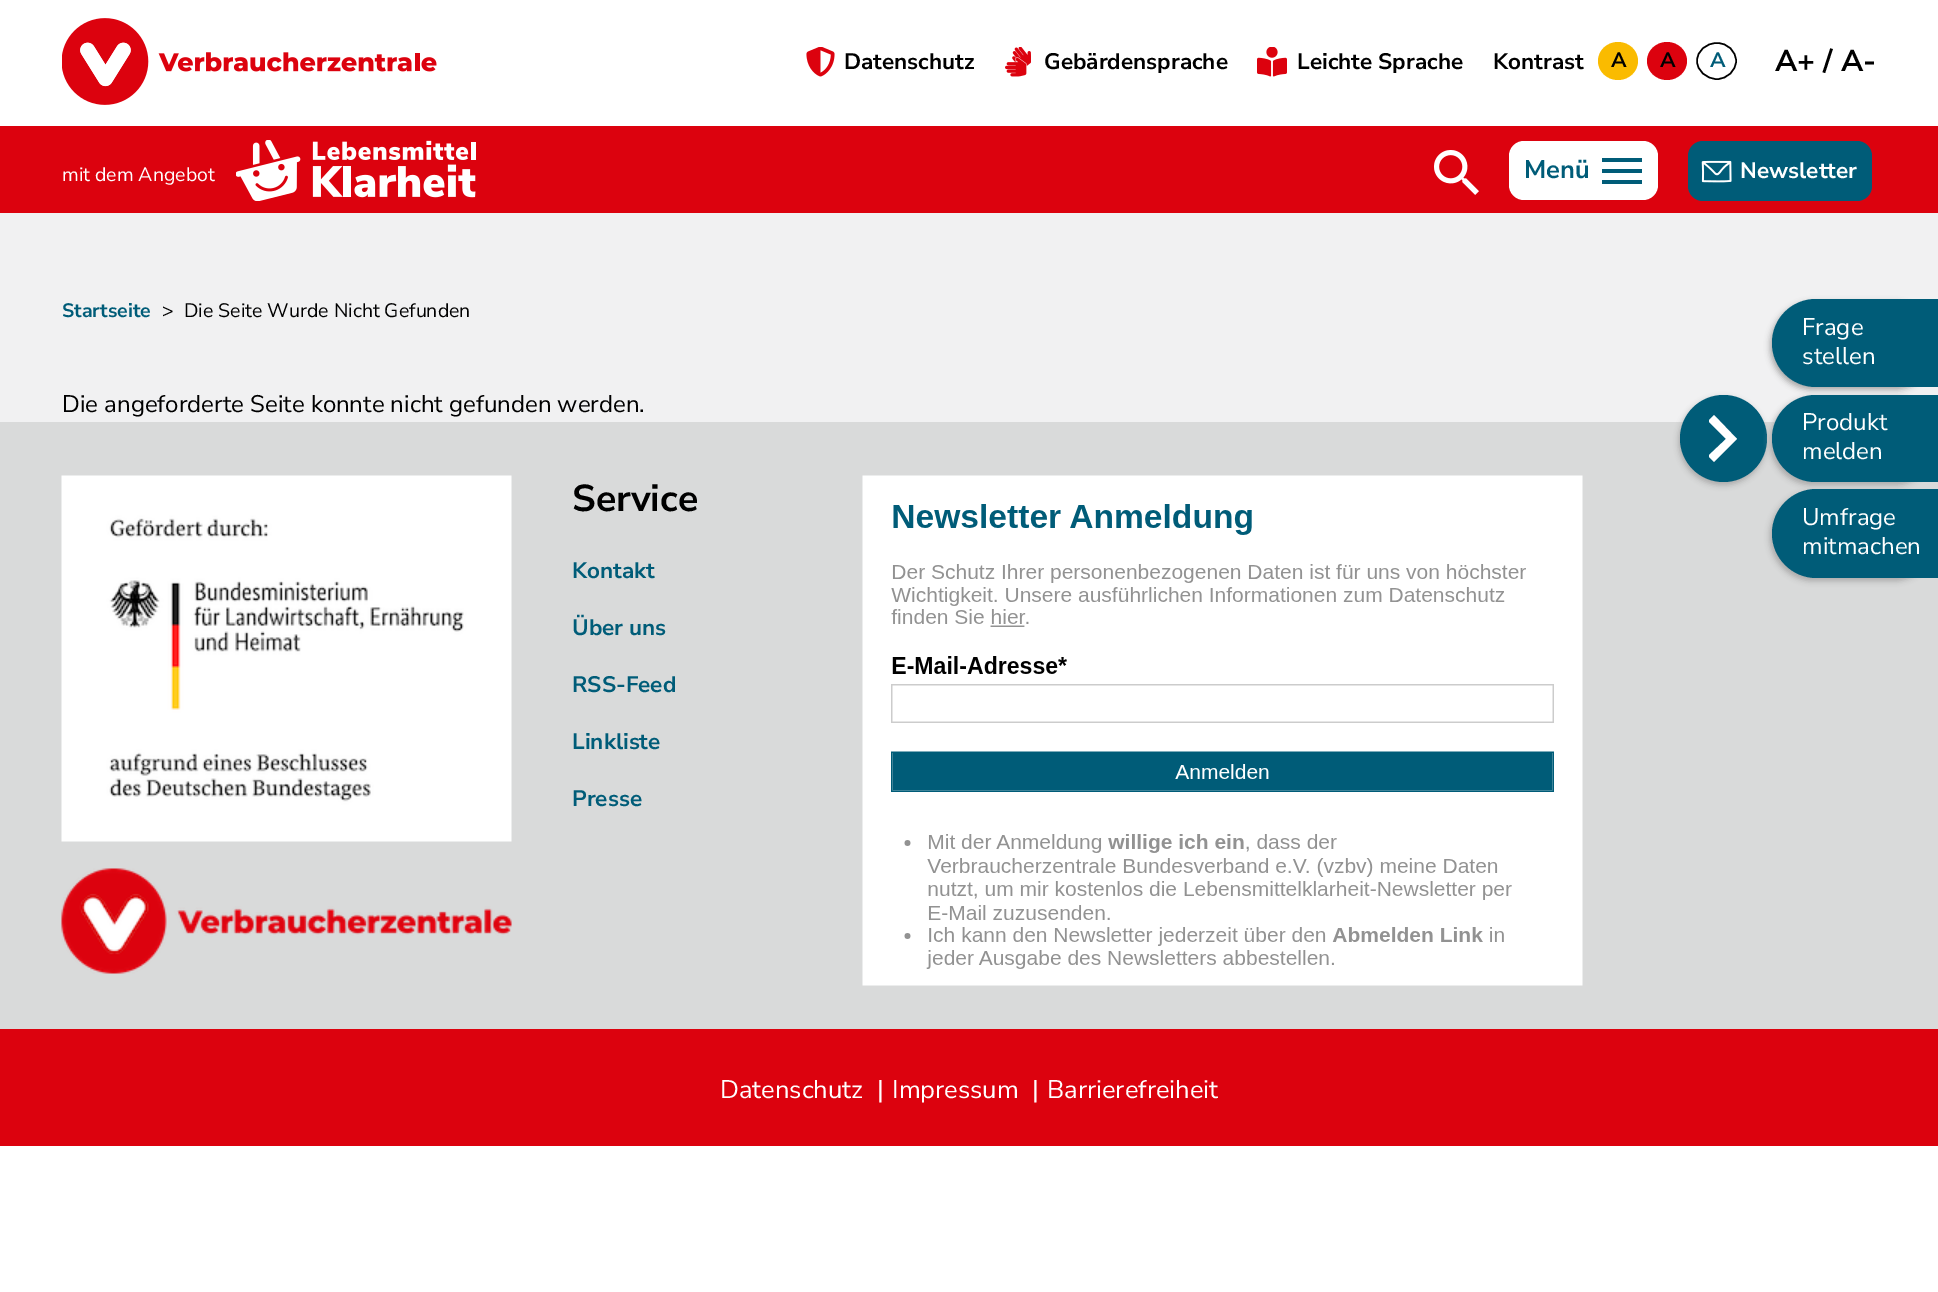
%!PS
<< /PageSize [1938 1292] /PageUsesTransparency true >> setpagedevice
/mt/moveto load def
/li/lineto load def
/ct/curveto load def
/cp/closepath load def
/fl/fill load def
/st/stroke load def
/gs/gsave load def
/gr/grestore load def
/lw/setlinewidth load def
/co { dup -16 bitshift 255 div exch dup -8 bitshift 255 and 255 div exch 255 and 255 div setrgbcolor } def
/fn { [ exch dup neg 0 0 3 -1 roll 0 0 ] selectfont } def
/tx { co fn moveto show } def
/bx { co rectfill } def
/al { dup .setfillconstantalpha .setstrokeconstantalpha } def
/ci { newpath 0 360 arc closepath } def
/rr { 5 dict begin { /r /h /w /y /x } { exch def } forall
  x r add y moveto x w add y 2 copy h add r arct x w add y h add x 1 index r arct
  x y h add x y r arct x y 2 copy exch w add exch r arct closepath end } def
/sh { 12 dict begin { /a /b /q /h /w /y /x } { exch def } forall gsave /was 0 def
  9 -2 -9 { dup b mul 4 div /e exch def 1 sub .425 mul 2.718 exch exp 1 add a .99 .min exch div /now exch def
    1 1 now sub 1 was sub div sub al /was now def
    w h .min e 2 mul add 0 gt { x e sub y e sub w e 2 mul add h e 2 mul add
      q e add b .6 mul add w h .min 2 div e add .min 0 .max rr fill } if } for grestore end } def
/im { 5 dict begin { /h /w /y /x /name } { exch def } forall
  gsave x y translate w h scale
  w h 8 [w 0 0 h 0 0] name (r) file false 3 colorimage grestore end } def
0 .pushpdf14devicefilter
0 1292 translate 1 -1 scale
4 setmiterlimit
0 0 1938 1292 16#FFFFFF bx
0 213 1938 209 16#F1F1F2 bx
(media/1.raw) 62 18 375 87 im
(media/2.raw) 806 47 29 30 im
(media/3.raw) 1005 47 26 30 im
(media/4.raw) 1257 47 30 30 im
16#FABB00 co
1618 42 mt 1629 42 1638 50.5 1638 61 ct 1638 71.5 1629 80 1618 80 ct 1607 80 1598 71.5 1598 61 ct 1598 50.5 1607 42 1618 42 ct cp fl
16#DC020E co
1667 42 mt 1678 42 1687 50.5 1687 61 ct 1687 71.5 1678 80 1667 80 ct 1656 80 1647 71.5 1647 61 ct 1647 50.5 1656 42 1667 42 ct cp fl
16#000000 co
1.5 lw
1717 43 mt 1727.5 43 1736 51 1736 61 ct 1736 70.5 1727.5 79 1717 79 ct 1706 79 1697 70.5 1697 61 ct 1697 51 1706 43 1717 43 ct cp st
0 126 1938 87 16#DC020E bx
(media/5.raw) 236 140 240 61 im
(media/6.raw) 1434 150 45 45 im
16#FFFFFF co
1509 141 149 59 15 rr fl
16#005C78 co
1602 184 mt 1642 184 li 1642 180 li 1602 180 li cp 1602 173 mt 1642 173 li 1642 169 li 1602 169 li cp 1602 158 mt 1602 162 li 1642 162 li 1642 158 li cp fl
1688 141 184 60 15 rr fl
(media/7.raw) 1701 160 31 23 im
0 422 1938 607 16#D9DADA bx
16#A9A9A9 co
1679 398 87 87 43.5 3 1 sh
16#005C78 co
1723.5 438.5 43.5 ci fl
gs
1709 414 30 48 rectclip
16#FFFFFF co
1714 415 mt 1708 421 li 1726 439 li 1708 456 li 1714 462 li 1737 439 li cp fl
gr
16#A9A9A9 co
1770 302 167 88 44 3 1 sh
16#005C78 co
1816 299 mt 1938 299 li 1938 387 li 1816 387 li 1791.5 387 1772 367.5 1772 343 ct 1772 318.5 1791.5 299 1816 299 ct cp fl
16#A9A9A9 co
1770 398 167 87 43.5 3 1 sh
16#005C78 co
1815.5 395 mt 1938 395 li 1938 482 li 1815.5 482 li 1791.5 482 1772 462.5 1772 438.5 ct 1772 414.5 1791.5 395 1815.5 395 ct cp fl
16#A9A9A9 co
1770 492 167 89 44.5 3 1 sh
16#005C78 co
1816.5 489 mt 1938 489 li 1938 578 li 1816.5 578 li 1792 578 1772 558 1772 533.5 ct 1772 509 1792 489 1816.5 489 ct cp fl
(media/8.raw) 61 475 451 367 im
(media/9.raw) 61 868 451 106 im
(media/10.raw) 862 475 721 511 im
0 1029 1938 117 16#DC020E bx
(Datenschutz) 844 69 /NunitoSans-Bold 22.5 16#000000 tx
(Gebärdensprache) 1044 69 /NunitoSans-Bold 22.5 16#000000 tx
(Leichte Sprache) 1297 69 /NunitoSans-Bold 22.5 16#000000 tx
(Kontrast) 1493 69 /NunitoSans-Bold 22.5 16#000000 tx
(A) 1611 67 /NunitoSans-Bold 21 16#000000 tx
(A) 1660 67 /NunitoSans-Bold 21 16#000000 tx
(A) 1710 67 /NunitoSans-Bold 21 16#005C78 tx
(A+ / A-) 1775 71 /NunitoSans-Bold 30 16#000000 tx
(mit dem Angebot) 62 181 /NunitoSans-Regular 19.5 16#FFFFFF tx
(Menü) 1524 178 /NunitoSans-Bold 25.5 16#005C78 tx
(Newsletter) 1740 178 /NunitoSans-Bold 22.5 16#FFFFFF tx
(Startseite) 62 317 /NunitoSans-Bold 19.5 16#005C78 tx
(>) 162 317 /NunitoSans-Regular 19.5 16#000000 tx
(Die Seite Wurde Nicht Gefunden) 184 317 /NunitoSans-Regular 19.5 16#000000 tx
(Frage) 1802 335 /NunitoSans-Regular 24 16#FFFFFF tx
(stellen) 1802 364 /NunitoSans-Regular 24 16#FFFFFF tx
(Produkt) 1802 430 /NunitoSans-Regular 24 16#FFFFFF tx
(melden) 1802 459 /NunitoSans-Regular 24 16#FFFFFF tx
(Umfrage) 1802 525 /NunitoSans-Regular 24 16#FFFFFF tx
(mitmachen) 1802 554 /NunitoSans-Regular 24 16#FFFFFF tx
(Die angeforderte Seite konnte nicht gefunden werden.) 62 412 /NunitoSans-Regular 24 16#000000 tx
(Service) 572 511 /NunitoSans-Bold 37.5 16#000000 tx
(Kontakt) 572 578 /NunitoSans-Bold 22.5 16#005C78 tx
(Über uns) 572 635 /NunitoSans-Bold 22.5 16#005C78 tx
(RSS-Feed) 572 692 /NunitoSans-Bold 22.5 16#005C78 tx
(Linkliste) 572 749 /NunitoSans-Bold 22.5 16#005C78 tx
(Presse) 572 806 /NunitoSans-Bold 22.5 16#005C78 tx
(Datenschutz) 720 1098 /NunitoSans-Regular 25.5 16#FFFFFF tx
(|) 877 1098 /NunitoSans-Regular 25.5 16#FFFFFF tx
(Impressum) 892 1098 /NunitoSans-Regular 25.5 16#FFFFFF tx
(|) 1032 1098 /NunitoSans-Regular 25.5 16#FFFFFF tx
(Barrierefreiheit) 1047 1098 /NunitoSans-Regular 25.5 16#FFFFFF tx
.poppdf14devicefilter showpage
